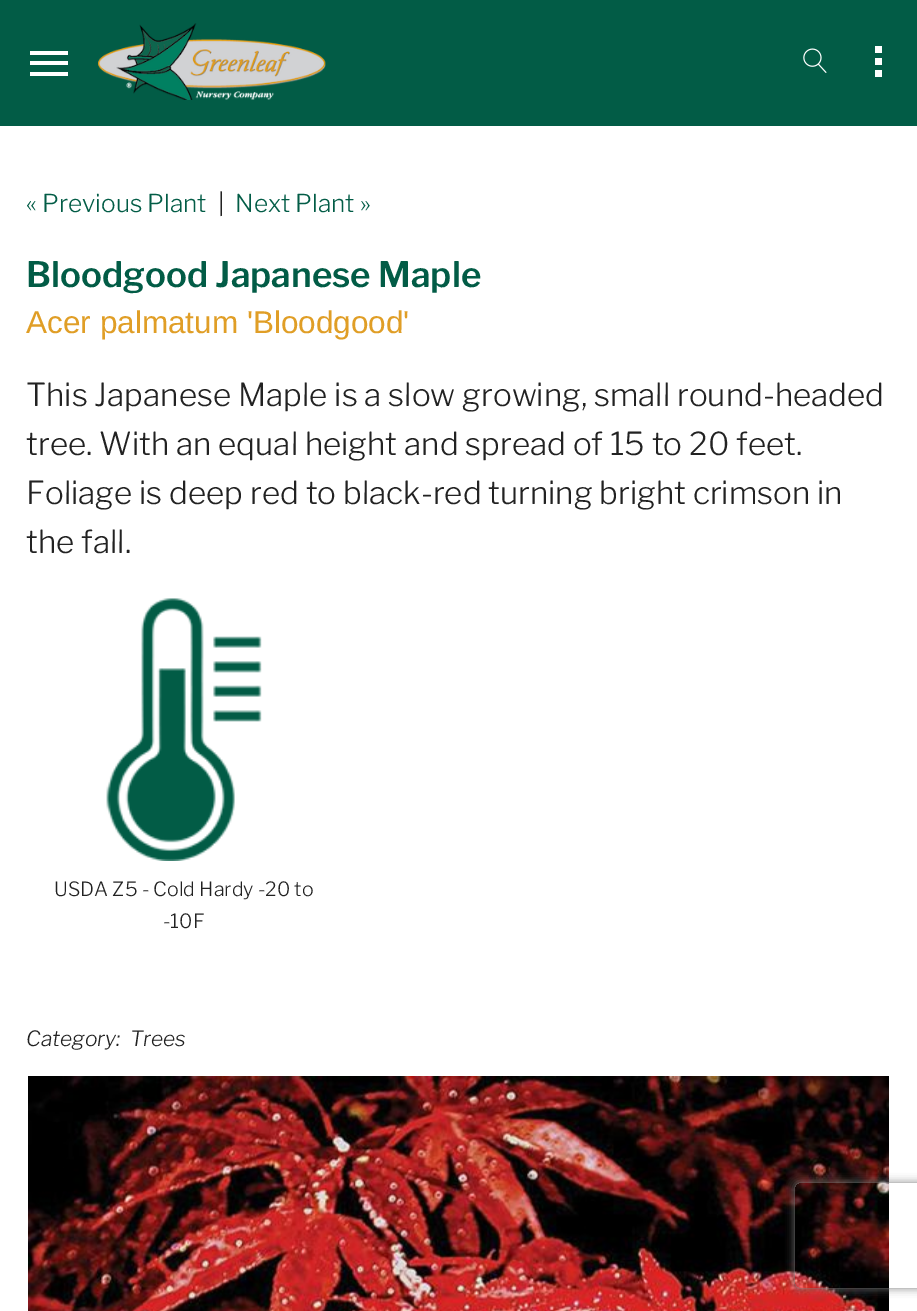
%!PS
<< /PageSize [917 1311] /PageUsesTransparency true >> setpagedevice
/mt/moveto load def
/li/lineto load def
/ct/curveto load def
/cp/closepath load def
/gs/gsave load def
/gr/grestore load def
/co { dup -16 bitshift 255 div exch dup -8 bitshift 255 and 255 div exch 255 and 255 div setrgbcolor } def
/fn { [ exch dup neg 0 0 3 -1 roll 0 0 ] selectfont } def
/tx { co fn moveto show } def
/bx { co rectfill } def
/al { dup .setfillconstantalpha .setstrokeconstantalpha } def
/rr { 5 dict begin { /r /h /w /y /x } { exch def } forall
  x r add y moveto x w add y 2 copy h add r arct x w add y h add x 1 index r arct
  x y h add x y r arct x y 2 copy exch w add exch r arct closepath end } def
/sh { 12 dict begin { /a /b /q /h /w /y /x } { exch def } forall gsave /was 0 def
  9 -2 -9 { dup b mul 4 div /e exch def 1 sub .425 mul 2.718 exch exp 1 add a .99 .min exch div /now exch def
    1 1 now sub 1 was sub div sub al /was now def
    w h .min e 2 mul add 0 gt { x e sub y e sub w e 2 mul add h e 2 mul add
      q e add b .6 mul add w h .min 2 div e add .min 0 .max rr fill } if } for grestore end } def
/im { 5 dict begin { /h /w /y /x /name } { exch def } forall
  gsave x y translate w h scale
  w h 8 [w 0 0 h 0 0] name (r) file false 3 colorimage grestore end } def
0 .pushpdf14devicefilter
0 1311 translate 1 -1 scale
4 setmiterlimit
0 0 917 1311 16#FFFFFF bx
0 0 917 126 16#025C46 bx
30 61 38 4 16#FFFFFF bx
30 51 38 4 16#FFFFFF bx
30 72 38 4 16#FFFFFF bx
(media/1.raw) 98 23 228 77 im
(media/2.raw) 803 48 24 25 im
875 58 7 7 16#FFFFFF bx
875 46 7 7 16#FFFFFF bx
875 70 7 7 16#FFFFFF bx
(media/3.raw) 106 598 156 263 im
(media/4.raw) 28 1076 861 235 im
gs
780 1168 mt 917 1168 li 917 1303 li 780 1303 li cp 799 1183 mt 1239 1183 li 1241 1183 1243 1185 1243 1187 ct 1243 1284 li 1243 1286 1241 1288 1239 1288 ct 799 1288 li 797 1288 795 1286 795 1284 ct 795 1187 li 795 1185 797 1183 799 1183 ct cp eoclip newpath
16#808080 co
795 1183 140 105 4 4.5 1 sh
gr
(« Previous Plant) 26 212 /LibreFranklin-Light 24.5 16#025C46 tx
(|) 218 212 /LibreFranklin-Light 24.5 16#222222 tx
(Next Plant ») 235 212 /LibreFranklin-Light 24.5 16#025C46 tx
(Bloodgood Japanese Maple) 26 287 /LibreFranklin-SemiBold 35 16#025C46 tx
(Acer palmatum 'Bloodgood') 26 333 /LiberationSans-Regular 31.5 16#E09E26 tx
(This Japanese Maple is a slow growing, small round-headed) 26 406 /LibreFranklin-Light 31.5 16#222222 tx
(tree. With an equal height and spread of 15 to 20 feet.) 26 455 /LibreFranklin-Light 31.5 16#222222 tx
(Foliage is deep red to black-red turning bright crimson in) 26 504 /LibreFranklin-Light 31.5 16#222222 tx
(the fall.) 26 553 /LibreFranklin-Light 31.5 16#222222 tx
(USDA Z5 - Cold Hardy -20 to) 54 896 /LibreFranklin-Light 19.6 16#222222 tx
(-10F) 163 928 /LibreFranklin-Light 19.6 16#222222 tx
(Category:) 26 1046 /LibreFranklin-ThinItalic 21 16#222222 tx
(Trees) 130 1046 /LibreFranklin-ThinItalic 21 16#222222 tx
.poppdf14devicefilter showpage
